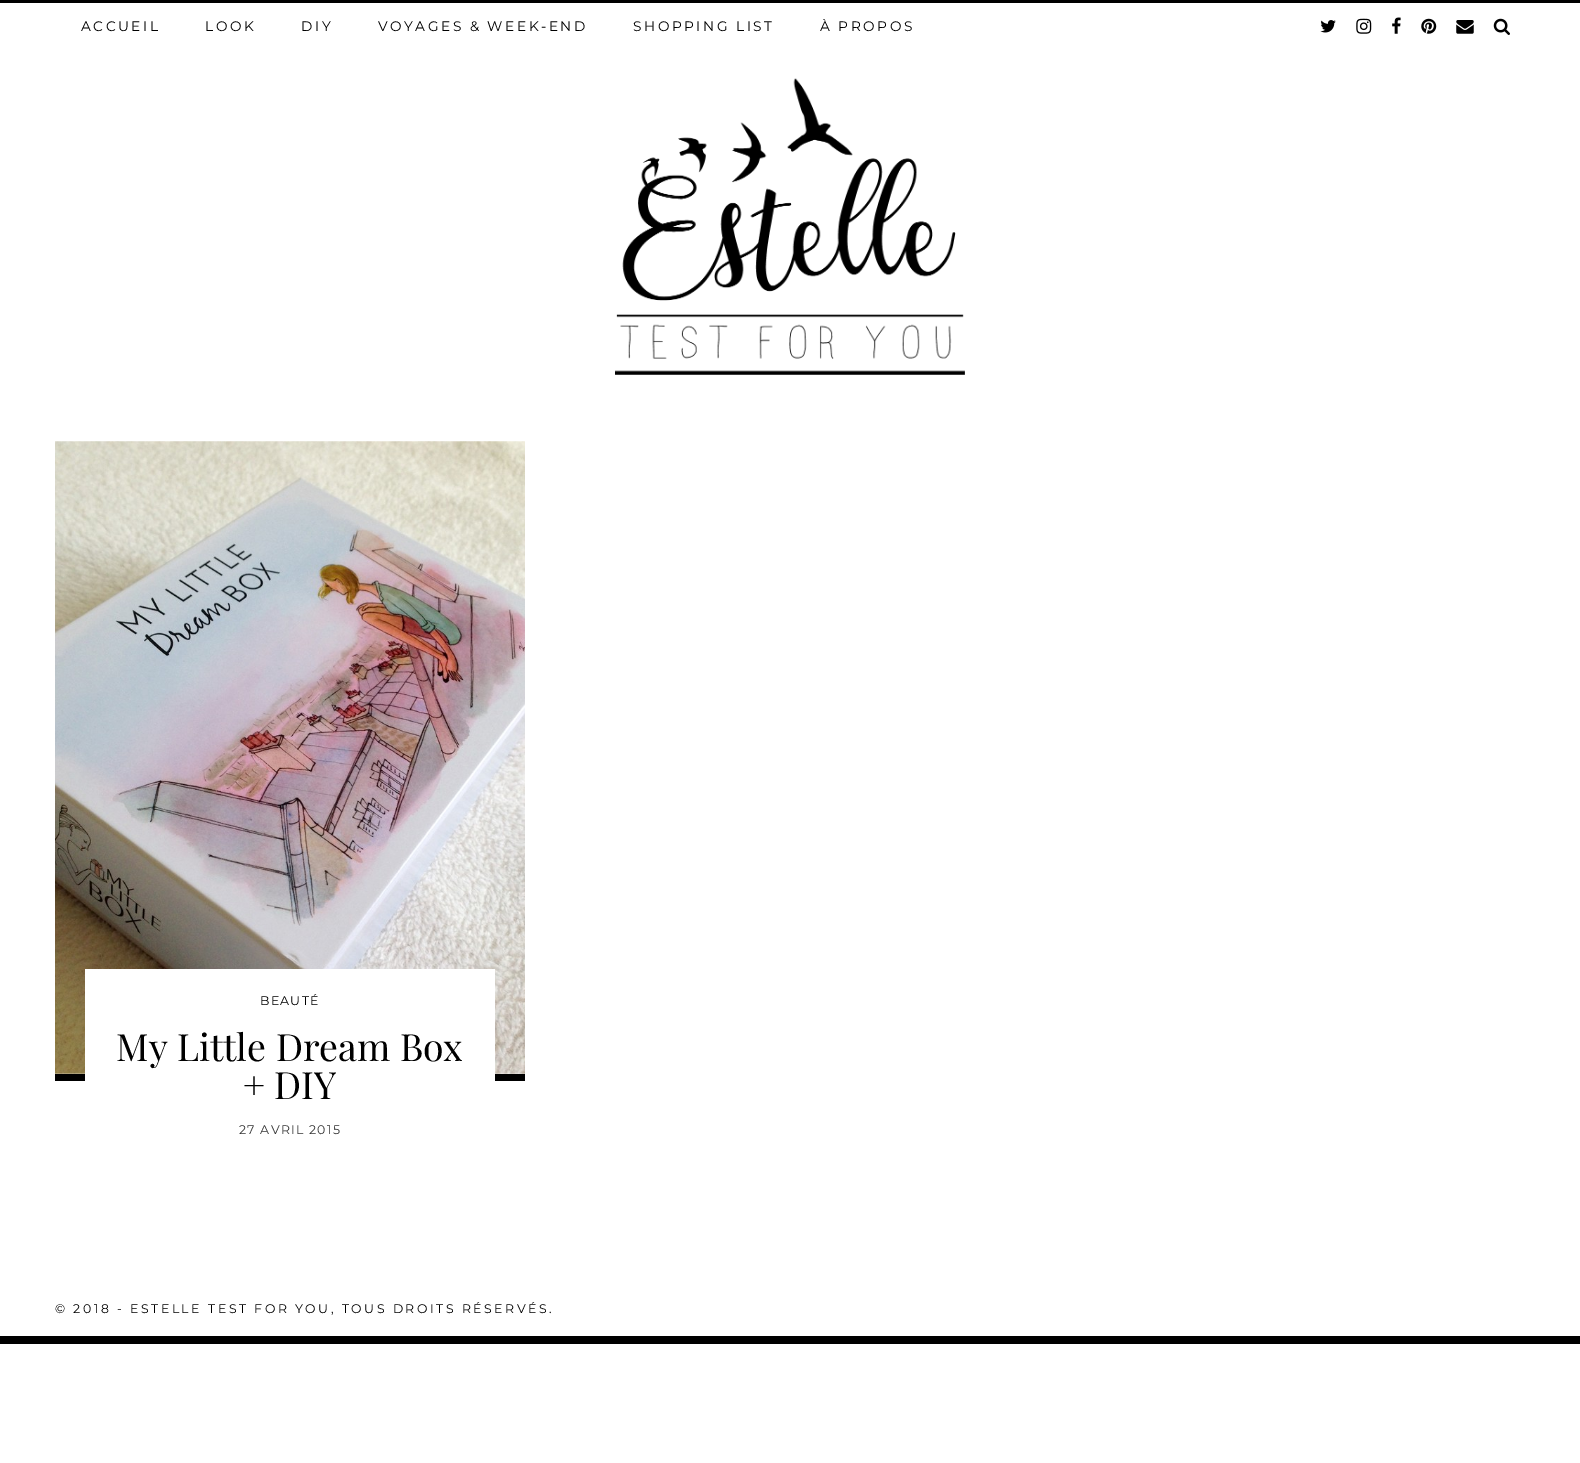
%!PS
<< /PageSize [1580 1463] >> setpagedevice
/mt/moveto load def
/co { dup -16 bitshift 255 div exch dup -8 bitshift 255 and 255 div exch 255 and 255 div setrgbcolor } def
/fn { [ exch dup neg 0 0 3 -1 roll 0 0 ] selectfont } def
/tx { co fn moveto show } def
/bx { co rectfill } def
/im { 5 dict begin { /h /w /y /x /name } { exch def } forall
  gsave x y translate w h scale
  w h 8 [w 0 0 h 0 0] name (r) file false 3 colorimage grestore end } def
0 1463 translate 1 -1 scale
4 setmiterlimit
0 0 1580 1463 16#FFFFFF bx
0 0 1580 3 16#000000 bx
(media/1.raw) 1320 20 16 13 im
(media/2.raw) 1356 18 16 16 im
(media/3.raw) 1392 17 9 17 im
(media/4.raw) 1421 18 16 16 im
(media/5.raw) 1456 20 18 14 im
(media/6.raw) 1493 18 17 17 im
(media/7.raw) 615 78 350 297 im
(media/8.raw) 55 441 470 633 im
55 1074 470 7 16#000000 bx
85 969 410 112 16#FFFFFF bx
0 1336 1580 8 16#000000 bx
/Montserrat-Thin 13.75 fn
81 31 mt 2.5 0 (ACCUEIL) ashow
205 31 mt 2.5 0 (LOOK) ashow
301 31 mt 2.5 0 (DIY) ashow
378 31 mt 2.5 0 (VOYAGES & WEEK-END) ashow
633 31 mt 2.5 0 (SHOPPING LIST) ashow
820 31 mt 2.5 0 (À PROPOS) ashow
/Montserrat-Thin 12.5 fn
260 1005 mt 1.25 0 (BEAUTÉ) ashow
(My Little Dream Box) 116 1061 /PlayfairDisplay-Regular 37.5 16#000000 tx
(+ DIY) 243 1099 /PlayfairDisplay-Regular 37.5 16#000000 tx
/Montserrat-Thin 12.5 fn
16#333333 co
239 1134 mt 1.25 0 (27 AVRIL 2015) ashow
16#000000 co
55 1313 mt 2.5 0 (© 2018 - ESTELLE TEST FOR YOU, TOUS DROITS RÉSERVÉS.) ashow
showpage
